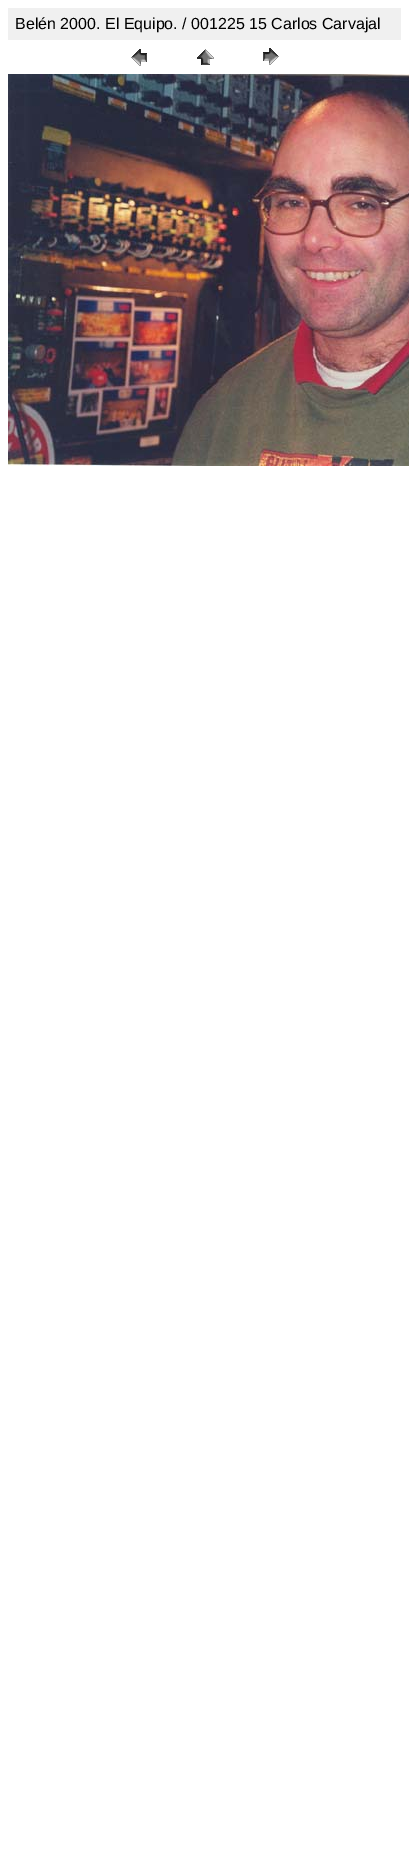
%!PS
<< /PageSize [409 1870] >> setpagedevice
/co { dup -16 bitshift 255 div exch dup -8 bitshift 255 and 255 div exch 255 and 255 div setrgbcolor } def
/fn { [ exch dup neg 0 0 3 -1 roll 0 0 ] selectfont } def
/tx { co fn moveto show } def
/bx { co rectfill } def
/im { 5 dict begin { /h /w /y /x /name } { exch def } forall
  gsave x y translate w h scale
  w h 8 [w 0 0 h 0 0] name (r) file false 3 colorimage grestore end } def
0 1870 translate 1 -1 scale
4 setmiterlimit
0 0 409 1870 16#FFFFFF bx
8 8 393 32 16#F0F0F0 bx
(media/1.raw) 131 49 16 17 im
(media/2.raw) 197 49 17 16 im
(media/3.raw) 263 48 16 17 im
(media/4.raw) 8 74 401 392 im
(Belén 2000. El Equipo. / 001225 15 Carlos Carvajal) 15 29 /LiberationSans-Regular 16 16#000000 tx
showpage
